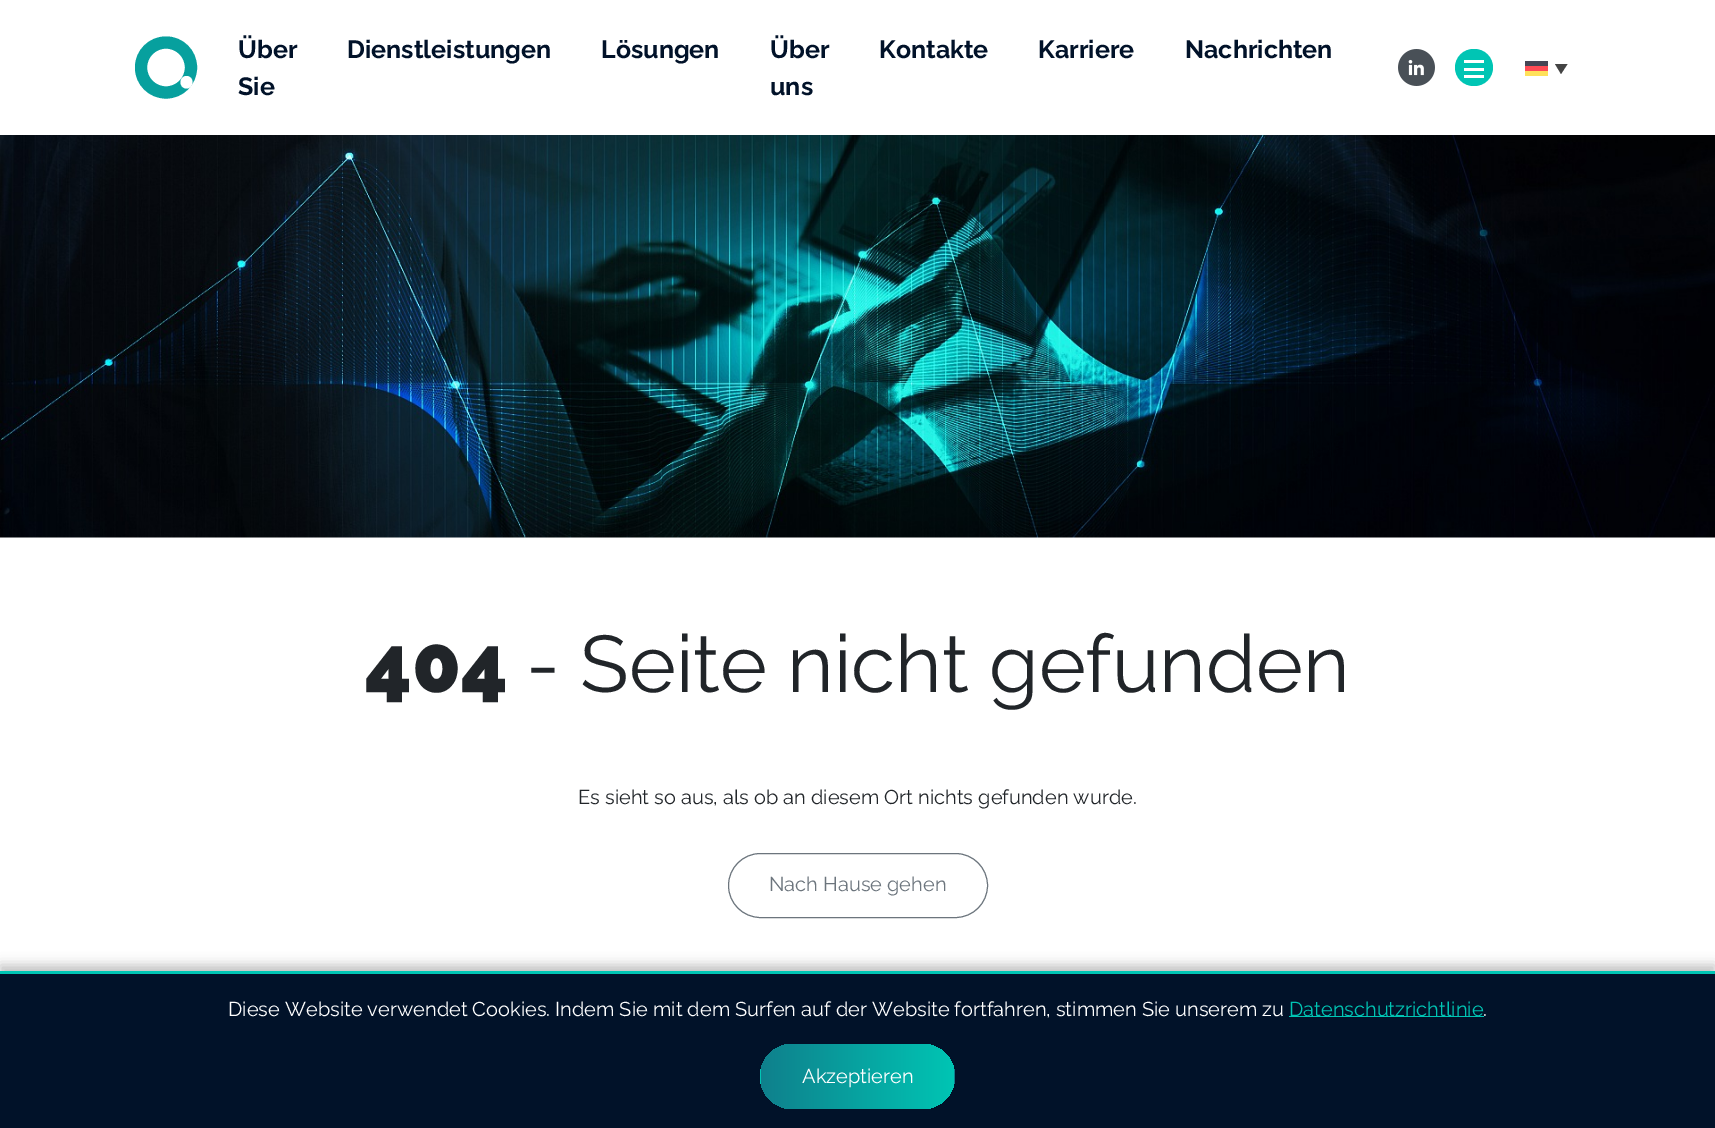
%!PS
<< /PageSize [1715 1128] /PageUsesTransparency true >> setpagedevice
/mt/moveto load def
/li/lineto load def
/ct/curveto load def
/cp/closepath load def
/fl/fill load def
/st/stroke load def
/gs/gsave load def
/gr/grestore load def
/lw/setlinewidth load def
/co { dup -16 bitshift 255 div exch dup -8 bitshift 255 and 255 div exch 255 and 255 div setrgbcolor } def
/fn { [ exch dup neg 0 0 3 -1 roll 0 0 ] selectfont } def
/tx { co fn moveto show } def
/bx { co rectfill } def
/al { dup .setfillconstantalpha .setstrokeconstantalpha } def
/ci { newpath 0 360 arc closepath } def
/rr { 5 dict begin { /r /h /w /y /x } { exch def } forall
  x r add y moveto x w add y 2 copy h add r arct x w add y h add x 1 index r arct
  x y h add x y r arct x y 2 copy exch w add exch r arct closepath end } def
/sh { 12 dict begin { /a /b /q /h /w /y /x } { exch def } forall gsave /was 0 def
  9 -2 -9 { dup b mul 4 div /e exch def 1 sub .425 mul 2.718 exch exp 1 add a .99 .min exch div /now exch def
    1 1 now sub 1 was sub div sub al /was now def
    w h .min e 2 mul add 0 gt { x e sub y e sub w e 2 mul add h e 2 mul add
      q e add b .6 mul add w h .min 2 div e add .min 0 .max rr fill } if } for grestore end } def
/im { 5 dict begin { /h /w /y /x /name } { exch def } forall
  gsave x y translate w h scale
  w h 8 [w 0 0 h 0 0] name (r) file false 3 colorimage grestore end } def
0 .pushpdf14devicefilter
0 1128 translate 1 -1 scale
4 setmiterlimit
0 0 1715 1128 16#FFFFFF bx
16#07A09E co
12.1 lw
166 67.5 25 ci st
16#FFFFFF co
186.5 76 mt 194.5 76 194.5 88.5 186.5 88.5 ct 178.5 88.5 178.5 76 186.5 76 ct cp fl
(media/1.raw) 1398 49 37 37 im
16#00C5B4 co
1455 49 38 37 18.5 rr fl
1464 60 20 3 16#FFFFFF bx
1464 68 20 3 16#FFFFFF bx
1464 75 20 3 16#FFFFFF bx
1525 61 23 5 16#464655 bx
1525 66 23 5 16#FF4B55 bx
16#444444 co
1555 64 mt 1567.5 64 li 1561 74 li cp fl
1525 71 23 5 16#FFE15A bx
(media/2.raw) 0 135 1715 403 im
16#6C757D co
1 lw
728.5 853.5 259 64 32 rr st
16#808080 co
0 965 1715 158 0 6 .5 sh
0 974 1715 154 16#011229 bx
0 971 1715 3 16#00C5B4 bx
1289 1016 195 1 16#00C5B4 bx
gs
760 1044 195 65 32.5 rr clip newpath
gs 760 1069 mt 761 1069 li 761 1084 li 760 1084 li cp clip newpath
<< /ShadingType 2 /ColorSpace /DeviceRGB /Coords [569 1076 761 1076] /Extend [true true] /Function << /FunctionType 2 /Domain [0 1] /C0 [.059 .502 .549] /C1 [0 .773 .706] /N 1 >> >> shfill gr
gs 761 1044 mt 954 1044 li 954 1109 li 761 1109 li cp clip newpath
<< /ShadingType 2 /ColorSpace /DeviceRGB /Coords [761 1076 954 1076] /Extend [true true] /Function << /FunctionType 2 /Domain [0 1] /C0 [.059 .502 .549] /C1 [0 .773 .706] /N 1 >> >> shfill gr
gs 954 1069 mt 955 1069 li 955 1084 li 954 1084 li cp clip newpath
<< /ShadingType 2 /ColorSpace /DeviceRGB /Coords [954 1076 1146 1076] /Extend [true true] /Function << /FunctionType 2 /Domain [0 1] /C0 [.059 .502 .549] /C1 [0 .773 .706] /N 1 >> >> shfill gr
gr
(Über) 238 58 /Raleway-Bold 25 16#011229 tx
(Sie) 238 95 /Raleway-Bold 25 16#011229 tx
(Dienstleistungen) 347 58 /Raleway-Bold 25 16#011229 tx
(Lösungen) 601 58 /Raleway-Bold 25 16#011229 tx
(Über) 770 58 /Raleway-Bold 25 16#011229 tx
(uns) 770 95 /Raleway-Bold 25 16#011229 tx
(Kontakte) 879 58 /Raleway-Bold 25 16#011229 tx
(Karriere) 1038 58 /Raleway-Bold 25 16#011229 tx
(Nachrichten) 1185 58 /Raleway-Bold 25 16#011229 tx
(404) 365 692 /Raleway-Black 80 16#212529 tx
(- Seite nicht gefunden) 526 692 /Raleway-Regular 80 16#212529 tx
(Es sieht so aus, als ob an diesem Ort nichts gefunden wurde.) 578 804 /Raleway-Regular 20 16#212529 tx
(Nach Hause gehen) 769 891 /Raleway-Regular 20 16#6C757D tx
(Diese Website verwendet Cookies. Indem Sie mit dem Surfen auf der Website fortfahren, stimmen Sie unserem zu) 228 1016 /Raleway-Regular 20 16#FFFFFF tx
(Datenschutzrichtlinie) 1289 1016 /Raleway-Regular 20 16#00C5B4 tx
(.) 1483 1016 /Raleway-Regular 20 16#FFFFFF tx
(Akzeptieren) 802 1083 /Raleway-Regular 20 16#FFFFFF tx
.poppdf14devicefilter showpage
